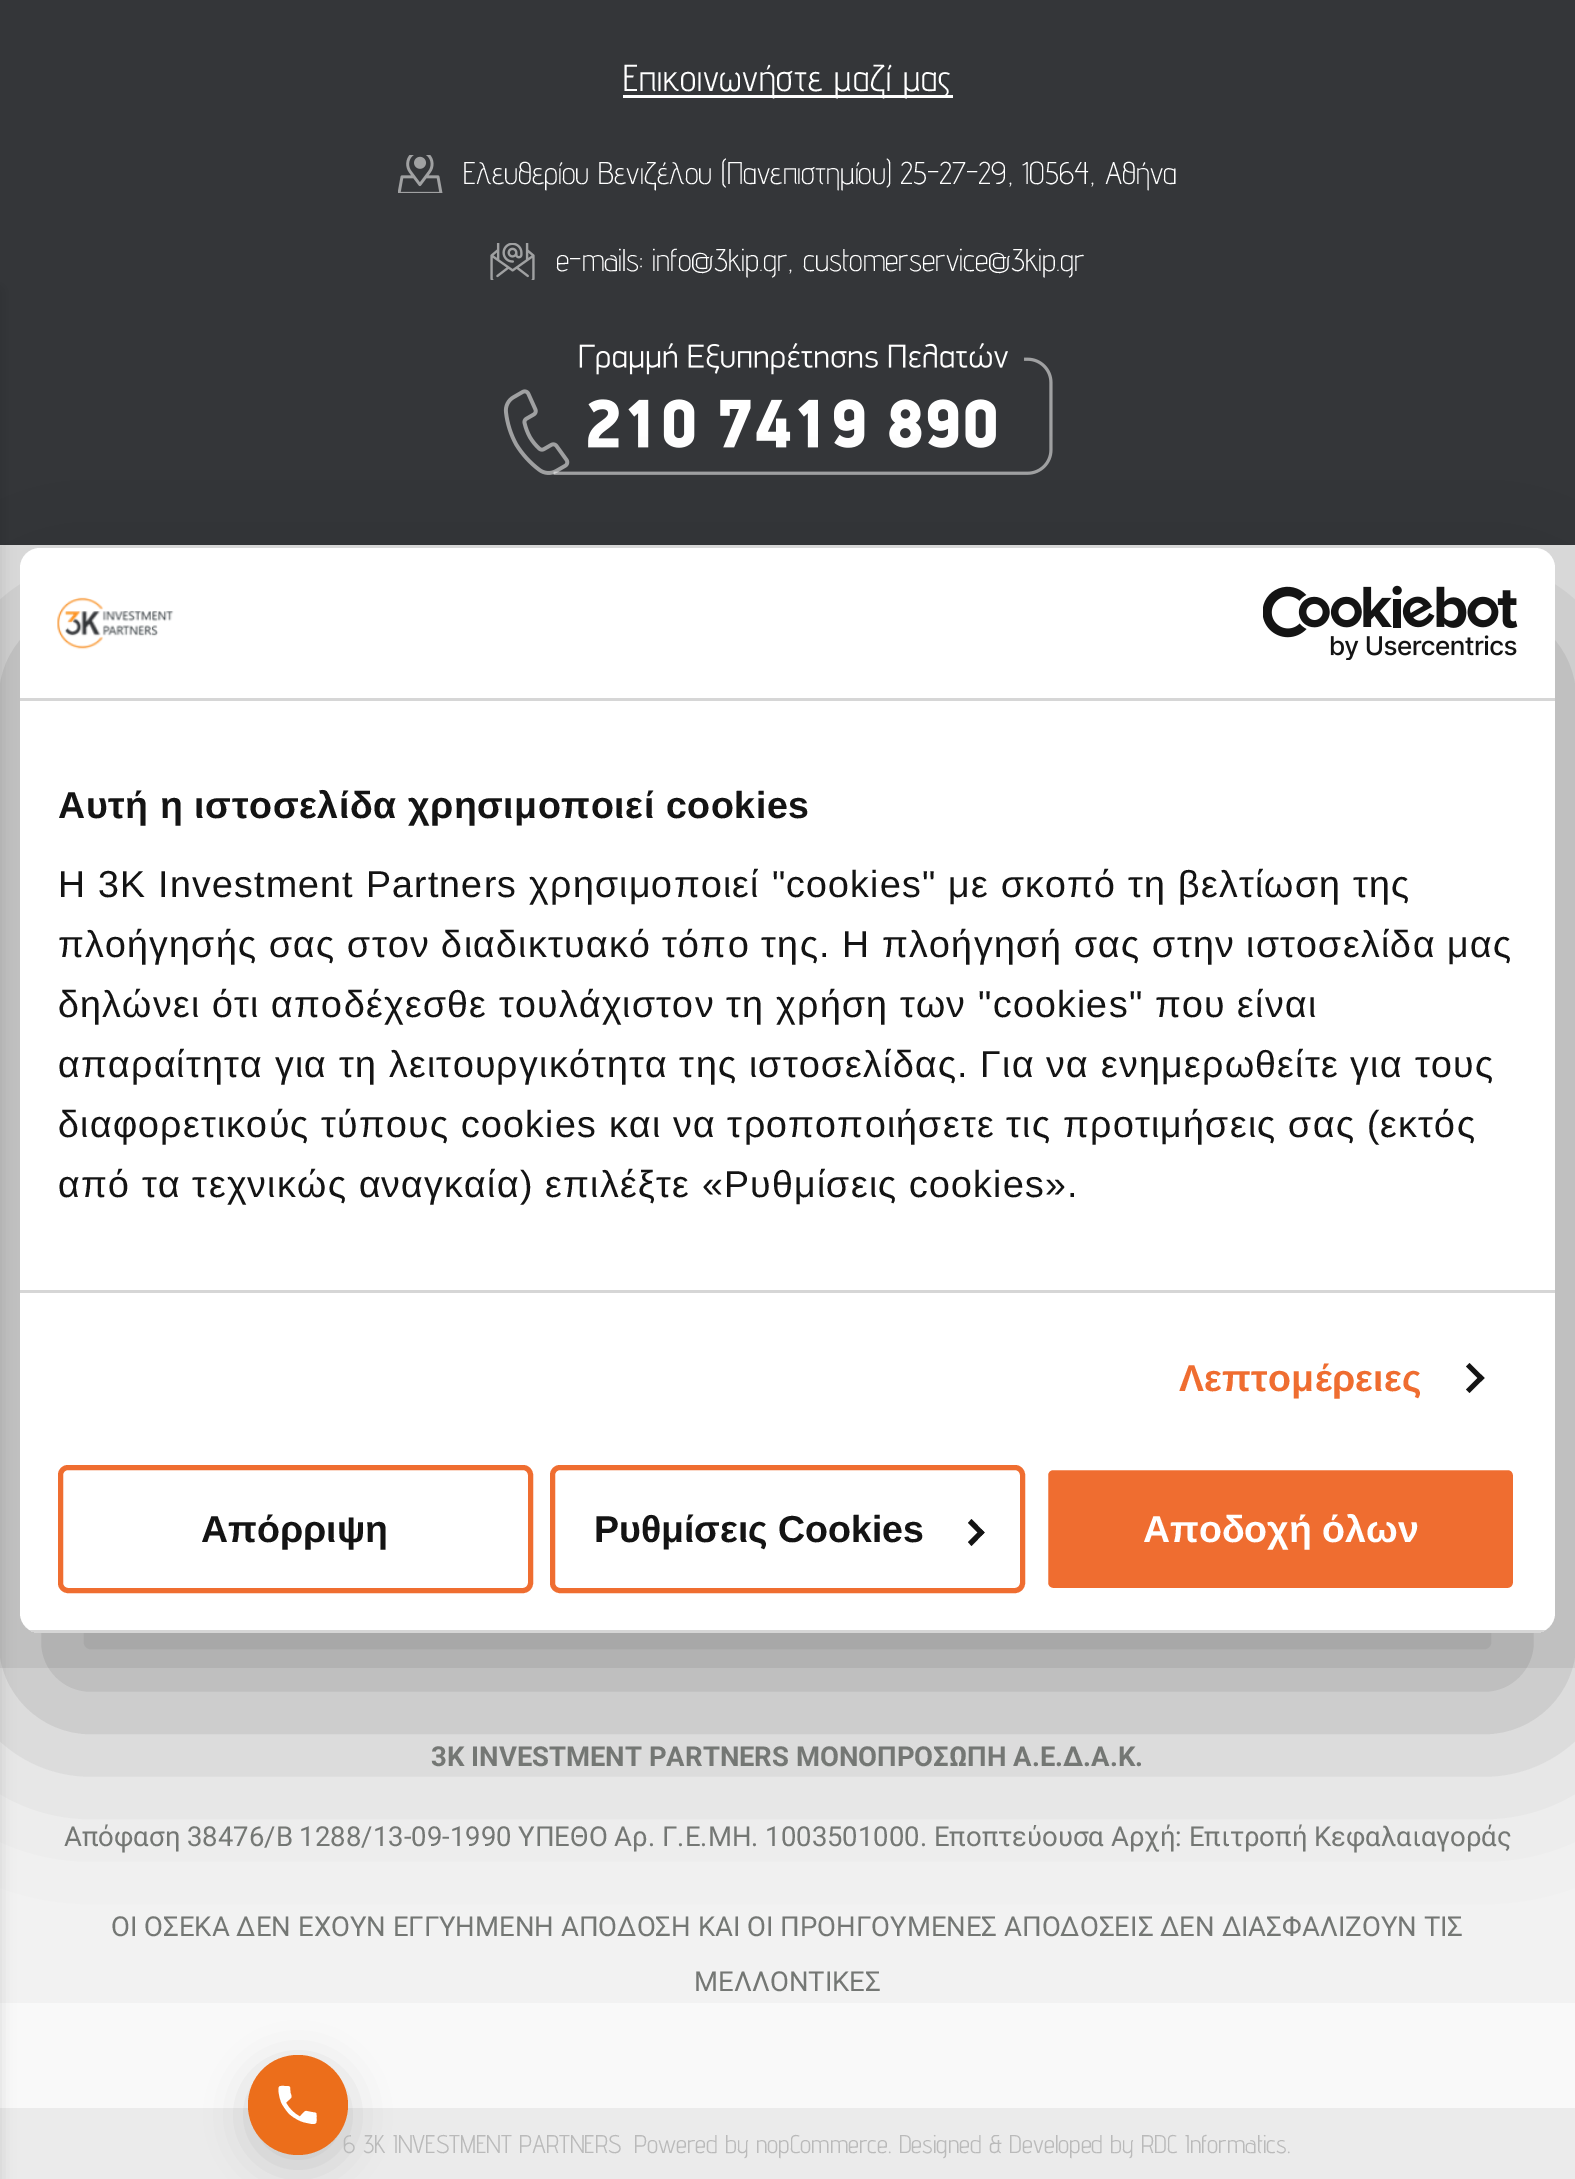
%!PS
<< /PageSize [1575 2179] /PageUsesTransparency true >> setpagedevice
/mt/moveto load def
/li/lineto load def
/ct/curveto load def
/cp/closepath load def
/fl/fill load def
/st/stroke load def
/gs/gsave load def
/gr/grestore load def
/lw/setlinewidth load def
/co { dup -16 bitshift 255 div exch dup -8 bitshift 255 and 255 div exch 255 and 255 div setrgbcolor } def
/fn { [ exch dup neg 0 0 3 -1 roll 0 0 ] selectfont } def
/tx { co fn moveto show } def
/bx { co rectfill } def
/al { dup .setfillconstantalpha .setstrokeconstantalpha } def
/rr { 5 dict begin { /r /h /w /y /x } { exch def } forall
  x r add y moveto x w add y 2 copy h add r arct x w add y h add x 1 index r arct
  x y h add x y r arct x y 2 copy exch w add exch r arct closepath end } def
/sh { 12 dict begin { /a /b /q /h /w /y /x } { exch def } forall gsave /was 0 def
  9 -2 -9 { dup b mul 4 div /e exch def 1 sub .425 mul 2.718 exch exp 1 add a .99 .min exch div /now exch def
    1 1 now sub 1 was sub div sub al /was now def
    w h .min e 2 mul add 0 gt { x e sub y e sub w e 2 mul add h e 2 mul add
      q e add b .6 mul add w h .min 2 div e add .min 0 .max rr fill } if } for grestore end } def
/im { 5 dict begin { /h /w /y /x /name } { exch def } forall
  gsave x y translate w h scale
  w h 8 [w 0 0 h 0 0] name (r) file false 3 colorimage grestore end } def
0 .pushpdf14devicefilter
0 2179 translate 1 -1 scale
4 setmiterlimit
0 0 1575 2179 16#343639 bx
0 545 1575 1123 16#E2E2E2 bx
0 1668 1575 335 16#F2F2F2 bx
0 2003 1575 105 16#F9F9F9 bx
0 2108 1575 71 16#EBEBEB bx
16#000000 co
-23 290 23 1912 0 7.5 .12 sh
623 95 330 3 16#FFFFFF bx
(media/1.raw) 398 155 45 38 im
(media/2.raw) 490 243 45 37 im
(media/3.raw) 503 343 550 132 im
16#000000 co
248 2065 100 100 50 20 .15 sh
20 628 1535 1085 20 85 .3 sh
16#FFFFFF co
20 548 1535 1085 20 rr fl
20 698 1535 3 16#D6D6D6 bx
(media/4.raw) 57 597 117 53 im
(media/5.raw) 1263 585 255 75 im
20 1290 1535 3 16#D6D6D6 bx
16#141414 co
1469.5 1363 mt 1484.5 1378 li 1481 1381.5 li 1466 1366.5 li cp fl
1481 1374.5 mt 1484.5 1378 li 1469.5 1393 li 1466 1389.5 li cp fl
gs
20 548 1535 1085 20 rr clip newpath
29 1630 1517 3 16#D6D6D6 bx
gr
16#EF6D30 co
5 lw
60.5 1467.5 470 123 7.5 rr st
552.5 1467.5 470 123 7.5 rr st
16#141414 co
971.5 1519 mt 984.5 1532.5 li 981 1536 li 968 1523 li cp fl
981 1529 mt 984.5 1532.5 li 971.5 1546 li 968 1542 li cp fl
16#EF6D30 co
1045.5 1467.5 470 123 7.5 rr gs fl gr
16#FFFFFF co
st
/AdventPro-Regular 37.5 fn
623 91 mt .7 0 (Επικοινωνήστε μαζί μας) ashow
(Ελευθερίου Βενιζέλου \(Πανεπιστημίου\) 25-27-29, 10564, Αθήνα) 463 184 /AdventPro-Light 31.5 16#FFFFFF tx
(e-mails: info@3kip.gr, customerservice@3kip.gr) 556 271 /AdventPro-Light 31.5 16#FFFFFF tx
(3K INVESTMENT PARTNERS ΜΟΝΟΠΡΟΣΩΠΗ Α.Ε.Δ.Α.Κ.) 431 1766 /Roboto-Bold 27.5 16#747774 tx
(Απόφαση 38476/Β 1288/13-09-1990 ΥΠΕΘΟ Αρ. Γ.Ε.ΜΗ. 1003501000. Εποπτεύουσα Αρχή: Επιτροπή Κεφαλαιαγοράς) 64 1846 /Roboto-Regular 27.5 16#747774 tx
(ΟΙ ΟΣΕΚΑ ΔΕΝ ΕΧΟΥΝ ΕΓΓΥΗΜΕΝΗ ΑΠΟΔΟΣΗ ΚΑΙ ΟΙ ΠΡΟΗΓΟΥΜΕΝΕΣ ΑΠΟΔΟΣΕΙΣ ΔΕΝ ΔΙΑΣΦΑΛΙΖΟΥΝ ΤΙΣ) 111 1936 /Roboto-Regular 27.5 16#747774 tx
(ΜΕΛΛΟΝΤΙΚΕΣ) 694 1991 /Roboto-Regular 27.5 16#747774 tx
(6 3K INVESTMENT PARTNERS) 343 2153 /AdventPro-Regular 25.6 16#BABABA tx
(Powered by nopCommerce. Designed & Developed by RDC Informatics.) 634 2153 /AdventPro-Regular 25.6 16#BABABA tx
16#EC6E1B co
348 2105 mt 348 2077 325 2055 298 2055 ct 270 2055 248 2077 248 2105 ct 248 2133 270 2155 298 2155 ct 325 2155 348 2133 348 2105 ct cp fl
16#FFFFFF co
286 2102.5 mt 289 2108.5 294 2113.5 300 2116.5 ct 301.5 2115 304.5 2110.5 306.5 2111 ct 311.5 2112 li 317 2113 316.5 2112 316.5 2118 ct 316.5 2122.5 317 2124 312 2124 ct 305 2122.5 li 300 2121.5 295 2118.5 290.5 2115 ct 287 2112 284.5 2108 282 2104 ct 280 2100 279 2095 278.5 2090.5 ct 278.5 2085.5 279.5 2086 284.5 2086 ct 292 2086 289.5 2086.5 290.5 2093 ct 291 2094.5 292 2096.5 291 2098 ct cp fl
/LiberationSans-Bold 37.5 fn
16#141414 co
58 818 mt .6 0 (Αυτή η ιστοσελίδα χρησιμοποιεί cookies) ashow
/LiberationSans-Regular 37.5 fn
58 897 mt 1.25 0 (Η 3K Investment Partners χρησιμοποιεί "cookies" με σκοπό τη βελτίωση της) ashow
58 957 mt 1.25 0 (πλοήγησής σας στον διαδικτυακό τόπο της. Η πλοήγησή σας στην ιστοσελίδα μας) ashow
58 1017 mt 1.25 0 (δηλώνει ότι αποδέχεσθε τουλάχιστον τη χρήση των "cookies" που είναι) ashow
58 1077 mt 1.25 0 (απαραίτητα για τη λειτουργικότητα της ιστοσελίδας. Για να ενημερωθείτε για τους) ashow
58 1137 mt 1.25 0 (διαφορετικούς τύπους cookies και να τροποποιήσετε τις προτιμήσεις σας \(εκτός) ashow
58 1197 mt 1.25 0 (από τα τεχνικώς αναγκαία\) επιλέξτε «Ρυθμίσεις cookies».) ashow
/LiberationSans-Bold 37.5 fn
16#EF6D30 co
1179 1391 mt .25 0 (Λεπτομέρειες) ashow
(Απόρριψη) 201 1542 /LiberationSans-Bold 37.5 16#141414 tx
(Ρυθμίσεις Cookies) 594 1542 /LiberationSans-Bold 37.5 16#141414 tx
(Αποδοχή όλων) 1143 1542 /LiberationSans-Bold 37.5 16#FFFFFF tx
.poppdf14devicefilter showpage
